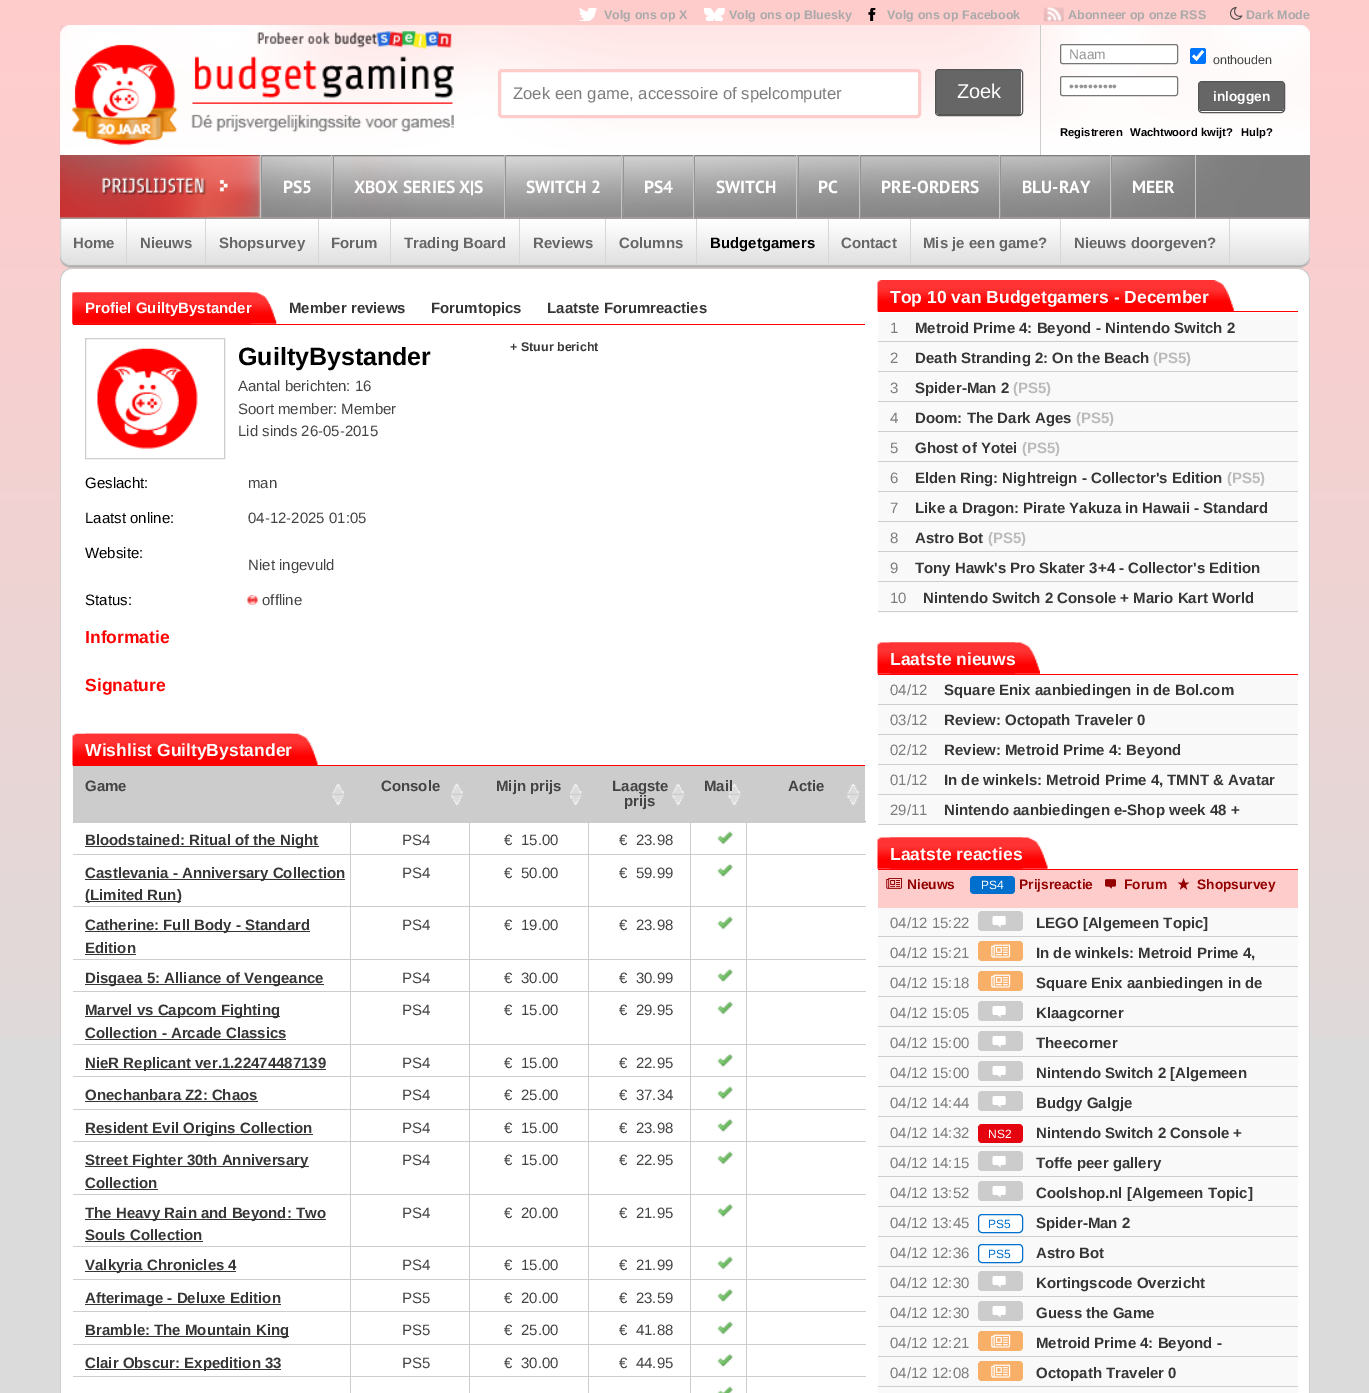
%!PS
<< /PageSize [1369 1393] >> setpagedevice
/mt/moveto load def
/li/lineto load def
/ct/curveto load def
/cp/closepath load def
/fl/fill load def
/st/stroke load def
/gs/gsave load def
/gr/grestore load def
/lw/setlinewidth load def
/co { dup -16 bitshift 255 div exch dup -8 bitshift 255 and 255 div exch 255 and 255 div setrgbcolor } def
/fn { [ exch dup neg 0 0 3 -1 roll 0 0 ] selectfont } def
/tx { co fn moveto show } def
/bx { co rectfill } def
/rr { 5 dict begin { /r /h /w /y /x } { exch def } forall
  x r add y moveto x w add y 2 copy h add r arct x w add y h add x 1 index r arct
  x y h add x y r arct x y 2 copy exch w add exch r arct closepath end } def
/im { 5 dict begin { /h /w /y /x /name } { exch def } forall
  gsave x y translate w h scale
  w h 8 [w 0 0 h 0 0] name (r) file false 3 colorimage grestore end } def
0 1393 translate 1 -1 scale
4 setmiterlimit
0 0 1369 1393 16#DBDBDB bx
(media/1.raw) 0 0 1369 1036 im
(media/2.raw) 579 8 19 13 im
(media/3.raw) 704 8 21 13 im
(media/4.raw) 868 8 8 13 im
(media/5.raw) 1043 7 21 15 im
(media/6.raw) 1230 7 13 13 im
(media/7.raw) 60 25 1250 130 im
(media/9.raw) 71 44 383 102 im
(media/8.raw) 257 31 195 18 im
16#FFFFFF co
499.5 70.5 420 46 2.5 rr gs fl gr
16#FFCCCC co
3 lw
st
16#666666 co
939 70 mt 1019 70 li 1020 70 1021 71 1021 72 ct 1021 112 li 1021 113 1020 114 1019 114 ct 939 114 li 937 114 936 113 936 112 ct 936 72 li 936 71 937 70 939 70 ct cp fl
16#555555 co
1 lw
935.5 69.5 87 46 3.5 rr st
938 114 83 1 16#555555 bx
1040 25 1 130 16#CCCCCC bx
16#FFFFFF co
1060.5 44.5 117 19 2 rr gs fl gr
16#767676 co
st
16#FFFFFF co
1060.5 76.5 117 19 2 rr gs fl gr
16#767676 co
st
16#0075FF co
1190 48 16 16 2.5 rr fl
16#FFFFFF co
2.6 lw
1193 55.5 mt 1196.5 59 li 1203 51 li st
16#666666 co
1201 82 mt 1281 82 li 1283 82 1284 84 1284 85 ct 1284 109 li 1284 109 1283 110 1281 110 ct 1201 110 li 1200 110 1199 109 1199 109 ct 1199 85 li 1199 84 1200 82 1201 82 ct cp fl
16#555555 co
1 lw
1198.5 81.5 86 31 3.5 rr st
1200 110 84 1 16#555555 bx
(media/11.raw) 60 217 1250 51 im
(media/10.raw) 60 155 1250 63 im
260 155 1 63 16#C4C3C3 bx
331 155 1 64 16#C4C3C3 bx
261 155 1 64 16#969494 bx
504 155 1 64 16#C4C3C3 bx
333 155 1 64 16#969494 bx
621 155 1 64 16#C4C3C3 bx
505 155 1 64 16#969494 bx
693 155 1 64 16#C4C3C3 bx
623 155 1 64 16#969494 bx
796 155 1 64 16#C4C3C3 bx
694 155 1 64 16#969494 bx
859 155 1 64 16#C4C3C3 bx
798 155 1 64 16#969494 bx
999 155 1 64 16#C4C3C3 bx
860 155 1 64 16#969494 bx
1110 155 1 64 16#C4C3C3 bx
1000 155 1 64 16#969494 bx
1195 155 1 64 16#C4C3C3 bx
1111 155 1 64 16#969494 bx
126 219 1 46 16#D7D7D7 bx
205 219 1 46 16#D7D7D7 bx
318 219 1 46 16#D7D7D7 bx
390 219 1 46 16#D7D7D7 bx
519 219 1 46 16#D7D7D7 bx
605 219 1 46 16#D7D7D7 bx
696 219 1 46 16#D7D7D7 bx
828 219 1 46 16#D7D7D7 bx
910 219 1 46 16#D7D7D7 bx
1060 219 1 46 16#D7D7D7 bx
1229 219 1 46 16#D7D7D7 bx
16#FFFFFF co
73 268 mt 1297 268 li 1304 268 1310 274 1310 281 ct 1310 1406 li 60 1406 li 60 281 li 60 274 66 268 73 268 ct cp fl
16#CDCDCD co
72 268 mt 1298 268 li 1304 268 1310 273 1310 280 ct 1310 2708 li 60 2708 li 60 280 li 60 273 66 268 72 268 ct cp 72 269 mt 1298 269 li 1304 269 1309 274 1309 280 ct 1309 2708 li 61 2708 li 61 280 li 61 274 66 269 72 269 ct cp eofill
73 324 792 1 16#FF0000 bx
(media/12.raw) 72 292 205 32 im
(media/13.raw) 72 292 180 32 im
16#CDCDCD co
85.5 338.5 139 120 rectstroke
(media/14.raw) 97 348 101 101 im
(media/15.raw) 247 595 11 10 im
73 765 792 1 16#FF0000 bx
(media/16.raw) 85 733 233 32 im
(media/17.raw) 72 733 221 32 im
746 1376 1 17 16#CDCDCD bx
746 1376 120 1 16#CDCDCD bx
746 1344 1 34 16#CDCDCD bx
746 1344 120 1 16#CDCDCD bx
746 1311 1 34 16#CDCDCD bx
746 1311 120 1 16#CDCDCD bx
746 1279 1 34 16#CDCDCD bx
746 1279 120 1 16#CDCDCD bx
746 1246 1 34 16#CDCDCD bx
746 1246 120 1 16#CDCDCD bx
746 1194 1 54 16#CDCDCD bx
746 1194 120 1 16#CDCDCD bx
746 1141 1 54 16#CDCDCD bx
746 1141 120 1 16#CDCDCD bx
746 1109 1 34 16#CDCDCD bx
746 1109 120 1 16#CDCDCD bx
746 1076 1 34 16#CDCDCD bx
746 1076 120 1 16#CDCDCD bx
746 1044 1 34 16#CDCDCD bx
746 1044 120 1 16#CDCDCD bx
746 991 1 54 16#CDCDCD bx
746 991 120 1 16#CDCDCD bx
746 959 1 34 16#CDCDCD bx
746 959 120 1 16#CDCDCD bx
746 906 1 54 16#CDCDCD bx
746 906 120 1 16#CDCDCD bx
746 854 1 54 16#CDCDCD bx
746 854 120 1 16#CDCDCD bx
746 821 1 34 16#CDCDCD bx
690 1376 1 17 16#CDCDCD bx
690 1376 58 1 16#CDCDCD bx
690 1344 1 34 16#CDCDCD bx
690 1344 58 1 16#CDCDCD bx
690 1311 1 34 16#CDCDCD bx
690 1311 58 1 16#CDCDCD bx
690 1279 1 34 16#CDCDCD bx
690 1279 58 1 16#CDCDCD bx
690 1246 1 34 16#CDCDCD bx
690 1246 58 1 16#CDCDCD bx
690 1194 1 54 16#CDCDCD bx
690 1194 58 1 16#CDCDCD bx
690 1141 1 54 16#CDCDCD bx
690 1141 58 1 16#CDCDCD bx
690 1109 1 34 16#CDCDCD bx
690 1109 58 1 16#CDCDCD bx
690 1076 1 34 16#CDCDCD bx
690 1076 58 1 16#CDCDCD bx
690 1044 1 34 16#CDCDCD bx
690 1044 58 1 16#CDCDCD bx
690 991 1 54 16#CDCDCD bx
690 991 58 1 16#CDCDCD bx
690 959 1 34 16#CDCDCD bx
690 959 58 1 16#CDCDCD bx
690 906 1 54 16#CDCDCD bx
690 906 58 1 16#CDCDCD bx
690 854 1 54 16#CDCDCD bx
690 854 58 1 16#CDCDCD bx
690 821 1 34 16#CDCDCD bx
588 1376 1 17 16#CDCDCD bx
588 1376 103 1 16#CDCDCD bx
588 1344 1 34 16#CDCDCD bx
588 1344 103 1 16#CDCDCD bx
588 1311 1 34 16#CDCDCD bx
588 1311 103 1 16#CDCDCD bx
588 1279 1 34 16#CDCDCD bx
588 1279 103 1 16#CDCDCD bx
588 1246 1 34 16#CDCDCD bx
588 1246 103 1 16#CDCDCD bx
588 1194 1 54 16#CDCDCD bx
588 1194 103 1 16#CDCDCD bx
588 1141 1 54 16#CDCDCD bx
588 1141 103 1 16#CDCDCD bx
588 1109 1 34 16#CDCDCD bx
588 1109 103 1 16#CDCDCD bx
588 1076 1 34 16#CDCDCD bx
588 1076 103 1 16#CDCDCD bx
588 1044 1 34 16#CDCDCD bx
588 1044 103 1 16#CDCDCD bx
588 991 1 54 16#CDCDCD bx
588 991 103 1 16#CDCDCD bx
588 959 1 34 16#CDCDCD bx
588 959 103 1 16#CDCDCD bx
588 906 1 54 16#CDCDCD bx
588 906 103 1 16#CDCDCD bx
588 854 1 54 16#CDCDCD bx
588 854 103 1 16#CDCDCD bx
588 821 1 34 16#CDCDCD bx
469 1376 1 17 16#CDCDCD bx
469 1376 120 1 16#CDCDCD bx
469 1344 1 34 16#CDCDCD bx
469 1344 120 1 16#CDCDCD bx
469 1311 1 34 16#CDCDCD bx
469 1311 120 1 16#CDCDCD bx
469 1279 1 34 16#CDCDCD bx
469 1279 120 1 16#CDCDCD bx
469 1246 1 34 16#CDCDCD bx
469 1246 120 1 16#CDCDCD bx
469 1194 1 54 16#CDCDCD bx
469 1194 120 1 16#CDCDCD bx
469 1141 1 54 16#CDCDCD bx
469 1141 120 1 16#CDCDCD bx
469 1109 1 34 16#CDCDCD bx
469 1109 120 1 16#CDCDCD bx
469 1076 1 34 16#CDCDCD bx
469 1076 120 1 16#CDCDCD bx
469 1044 1 34 16#CDCDCD bx
469 1044 120 1 16#CDCDCD bx
469 991 1 54 16#CDCDCD bx
469 991 120 1 16#CDCDCD bx
469 959 1 34 16#CDCDCD bx
469 959 120 1 16#CDCDCD bx
469 906 1 54 16#CDCDCD bx
469 906 120 1 16#CDCDCD bx
469 854 1 54 16#CDCDCD bx
469 854 120 1 16#CDCDCD bx
469 821 1 34 16#CDCDCD bx
350 1376 1 17 16#CDCDCD bx
350 1376 120 1 16#CDCDCD bx
350 1344 1 34 16#CDCDCD bx
350 1344 120 1 16#CDCDCD bx
350 1311 1 34 16#CDCDCD bx
350 1311 120 1 16#CDCDCD bx
350 1279 1 34 16#CDCDCD bx
350 1279 120 1 16#CDCDCD bx
350 1246 1 34 16#CDCDCD bx
350 1246 120 1 16#CDCDCD bx
350 1194 1 54 16#CDCDCD bx
350 1194 120 1 16#CDCDCD bx
350 1141 1 54 16#CDCDCD bx
350 1141 120 1 16#CDCDCD bx
350 1109 1 34 16#CDCDCD bx
350 1109 120 1 16#CDCDCD bx
350 1076 1 34 16#CDCDCD bx
350 1076 120 1 16#CDCDCD bx
350 1044 1 34 16#CDCDCD bx
350 1044 120 1 16#CDCDCD bx
350 991 1 54 16#CDCDCD bx
350 991 120 1 16#CDCDCD bx
350 959 1 34 16#CDCDCD bx
350 959 120 1 16#CDCDCD bx
350 906 1 54 16#CDCDCD bx
350 906 120 1 16#CDCDCD bx
350 854 1 54 16#CDCDCD bx
350 854 120 1 16#CDCDCD bx
350 821 1 34 16#CDCDCD bx
73 766 792 57 16#CCCCCC bx
(media/18.raw) 332 783 12 23 im
(media/19.raw) 451 783 12 23 im
(media/20.raw) 570 783 12 23 im
(media/18.raw) 672 783 12 23 im
(media/21.raw) 728 783 13 23 im
865 821 1 1 16#9F9F9F bx
(media/18.raw) 847 783 12 23 im
73 854 278 1 16#CDCDCD bx
85 846 234 1 16#363636 bx
(media/22.raw) 717 831 16 14 im
73 906 278 1 16#CDCDCD bx
85 879 260 1 16#363636 bx
85 901 96 1 16#363636 bx
(media/23.raw) 717 863 16 14 im
73 959 278 1 16#CDCDCD bx
85 931 225 1 16#363636 bx
85 954 51 1 16#363636 bx
(media/22.raw) 717 916 16 14 im
73 991 278 1 16#CDCDCD bx
85 984 239 1 16#363636 bx
(media/23.raw) 717 968 16 14 im
73 1044 278 1 16#CDCDCD bx
85 1016 195 1 16#363636 bx
85 1039 201 1 16#363636 bx
(media/22.raw) 717 1001 16 14 im
73 1076 278 1 16#CDCDCD bx
85 1069 241 1 16#363636 bx
(media/23.raw) 717 1053 16 14 im
73 1109 278 1 16#CDCDCD bx
85 1101 173 1 16#363636 bx
(media/22.raw) 717 1086 16 14 im
73 1141 278 1 16#CDCDCD bx
85 1134 228 1 16#363636 bx
(media/23.raw) 717 1118 16 14 im
73 1194 278 1 16#CDCDCD bx
85 1166 224 1 16#363636 bx
85 1189 73 1 16#363636 bx
(media/22.raw) 717 1151 16 14 im
73 1246 278 1 16#CDCDCD bx
85 1219 241 1 16#363636 bx
85 1241 118 1 16#363636 bx
(media/23.raw) 717 1203 16 14 im
73 1279 278 1 16#CDCDCD bx
85 1271 151 1 16#363636 bx
(media/22.raw) 717 1256 16 14 im
73 1311 278 1 16#CDCDCD bx
85 1304 196 1 16#363636 bx
(media/23.raw) 717 1288 16 14 im
73 1344 278 1 16#CDCDCD bx
85 1336 204 1 16#363636 bx
(media/22.raw) 717 1321 16 14 im
73 1376 278 1 16#CDCDCD bx
85 1369 196 1 16#363636 bx
(media/23.raw) 717 1353 16 14 im
(media/24.raw) 717 1386 16 7 im
878 311 420 1 16#FF0000 bx
(media/25.raw) 890 280 344 31 im
(media/26.raw) 877 280 13 32 im
878 313 420 300 16#F9F9F9 bx
878 341 420 1 16#CDCDCD bx
878 371 420 1 16#CDCDCD bx
878 401 420 1 16#CDCDCD bx
878 431 420 1 16#CDCDCD bx
878 461 420 1 16#CDCDCD bx
878 491 420 1 16#CDCDCD bx
878 521 420 1 16#CDCDCD bx
878 551 420 1 16#CDCDCD bx
878 581 420 1 16#CDCDCD bx
878 611 420 1 16#CDCDCD bx
878 674 420 1 16#FF0000 bx
(media/27.raw) 890 642 150 32 im
(media/28.raw) 877 642 138 32 im
878 675 420 29 16#F9F9F9 bx
878 704 420 1 16#CDCDCD bx
878 705 420 29 16#F9F9F9 bx
878 734 420 1 16#CDCDCD bx
878 735 420 29 16#F9F9F9 bx
878 764 420 1 16#CDCDCD bx
878 765 420 29 16#F9F9F9 bx
878 794 420 1 16#CDCDCD bx
878 795 420 29 16#F9F9F9 bx
878 824 420 1 16#CDCDCD bx
878 869 420 1 16#FF0000 bx
(media/29.raw) 890 837 158 32 im
(media/30.raw) 877 837 146 32 im
878 870 420 38 16#FFCCCC bx
(media/31.raw) 886 878 16 11 im
16#006FCD co
970 876 45 18 4 rr fl
(media/32.raw) 1105 879 11 10 im
(media/33.raw) 1177 878 13 12 im
878 908 420 485 16#F9F9F9 bx
878 936 420 1 16#CDCDCD bx
16#CCCCCC co
978 911 45 20 4 rr fl
(media/34.raw) 992 916 14 12 im
878 966 420 1 16#CDCDCD bx
16#F8B068 co
978 941 45 20 4 rr fl
(media/35.raw) 991 944 20 14 im
878 996 420 1 16#CDCDCD bx
16#F8B068 co
978 971 45 20 4 rr fl
(media/35.raw) 991 974 20 14 im
878 1026 420 1 16#CDCDCD bx
16#CCCCCC co
978 1001 45 20 4 rr fl
(media/34.raw) 992 1006 14 12 im
878 1056 420 1 16#CDCDCD bx
16#CCCCCC co
978 1031 45 20 4 rr fl
(media/34.raw) 992 1036 14 12 im
878 1086 420 1 16#CDCDCD bx
16#CCCCCC co
978 1061 45 20 4 rr fl
(media/34.raw) 992 1066 14 12 im
878 1116 420 1 16#CDCDCD bx
16#CCCCCC co
978 1091 45 20 4 rr fl
(media/34.raw) 992 1096 14 12 im
878 1146 420 1 16#CDCDCD bx
16#E4030F co
978 1124 45 19 4 rr fl
878 1176 420 1 16#CDCDCD bx
16#CCCCCC co
978 1151 45 20 4 rr fl
(media/34.raw) 992 1156 14 12 im
878 1206 420 1 16#CDCDCD bx
16#CCCCCC co
978 1181 45 20 4 rr fl
(media/34.raw) 992 1186 14 12 im
878 1236 420 1 16#CDCDCD bx
16#FFFFFF co
978.5 1214.5 44 18 3.5 rr gs fl gr
16#006FCD co
st
878 1266 420 1 16#CDCDCD bx
16#FFFFFF co
978.5 1244.5 44 18 3.5 rr gs fl gr
16#006FCD co
st
878 1296 420 1 16#CDCDCD bx
16#CCCCCC co
978 1271 45 20 4 rr fl
(media/34.raw) 992 1276 14 12 im
878 1326 420 1 16#CDCDCD bx
16#CCCCCC co
978 1301 45 20 4 rr fl
(media/34.raw) 992 1306 14 12 im
878 1356 420 1 16#CDCDCD bx
16#F8B068 co
978 1331 45 20 4 rr fl
(media/35.raw) 991 1334 20 14 im
878 1386 420 1 16#CDCDCD bx
16#F8B068 co
978 1361 45 20 4 rr fl
(media/35.raw) 991 1364 20 14 im
(Volg ons op X) 604 19 /LiberationSans-Bold 12.5 16#A9A9A9 tx
(Volg ons op Bluesky) 729 19 /LiberationSans-Bold 12.5 16#A9A9A9 tx
(Volg ons op Facebook) 887 19 /LiberationSans-Bold 12.5 16#A9A9A9 tx
(Abonneer op onze RSS) 1068 19 /LiberationSans-Bold 12.5 16#A9A9A9 tx
(Dark Mode) 1246 19 /LiberationSans-Bold 12.5 16#A9A9A9 tx
(Zoek een game, accessoire of spelcomputer) 513 99 /LiberationSans-Regular 16.7 16#7D7D7D tx
(Zoek) 957 98 /LiberationSans-Regular 20 16#FFFFFF tx
(Naam) 1069 59 /LiberationSans-Regular 13.75 16#959595 tx
(••••••••••) 1069 91 /LiberationSans-Regular 13.75 16#959595 tx
(onthouden) 1213 64 /LiberationSans-Regular 12.5 16#444444 tx
(inloggen) 1213 101 /LiberationSans-Bold 13.75 16#FFFFFF tx
(Registreren) 1060 136 /LiberationSans-Bold 11.25 16#000000 tx
(Wachtwoord kwijt?) 1130 136 /LiberationSans-Bold 11.25 16#000000 tx
(Hulp?) 1241 136 /LiberationSans-Bold 11.25 16#000000 tx
(PS5) 283 193 /PTSans-Bold 17.5 16#FFFFFF tx
(XBOX SERIES X|S) 354 193 /PTSans-Bold 17.5 16#FFFFFF tx
(SWITCH 2) 526 193 /PTSans-Bold 17.5 16#FFFFFF tx
(PS4) 644 193 /PTSans-Bold 17.5 16#FFFFFF tx
(SWITCH) 716 193 /PTSans-Bold 17.5 16#FFFFFF tx
(PC) 818 193 /PTSans-Bold 17.5 16#FFFFFF tx
(PRE-ORDERS) 881 193 /PTSans-Bold 17.5 16#FFFFFF tx
(BLU-RAY) 1022 193 /PTSans-Bold 17.5 16#FFFFFF tx
(MEER) 1132 193 /PTSans-Bold 17.5 16#FFFFFF tx
(Home) 73 248 /LiberationSans-Bold 15 16#666666 tx
(Nieuws) 140 248 /LiberationSans-Bold 15 16#666666 tx
(Shopsurvey) 219 248 /LiberationSans-Bold 15 16#666666 tx
(Forum) 331 248 /LiberationSans-Bold 15 16#666666 tx
(Trading Board) 404 248 /LiberationSans-Bold 15 16#666666 tx
(Reviews) 533 248 /LiberationSans-Bold 15 16#666666 tx
(Columns) 619 248 /LiberationSans-Bold 15 16#666666 tx
(Budgetgamers) 710 248 /LiberationSans-Bold 15 16#000000 tx
(Contact) 841 248 /LiberationSans-Bold 15 16#666666 tx
(Mis je een game?) 923 248 /LiberationSans-Bold 15 16#666666 tx
(Nieuws doorgeven?) 1074 248 /LiberationSans-Bold 15 16#666666 tx
(Profiel GuiltyBystander) 85 313 /LiberationSans-Bold 15 16#FFFFFF tx
(Member reviews) 289 313 /LiberationSans-Bold 15 16#363636 tx
(Forumtopics) 431 313 /LiberationSans-Bold 15 16#363636 tx
(Laatste Forumreacties) 547 313 /LiberationSans-Bold 15 16#363636 tx
(GuiltyBystander) 238 365 /LiberationSans-Bold 25 16#000000 tx
(Aantal berichten: 16) 238 391 /LiberationSans-Regular 15 16#444444 tx
(Soort member: Member) 238 414 /LiberationSans-Regular 15 16#444444 tx
(Lid sinds 26-05-2015) 238 436 /LiberationSans-Regular 15 16#444444 tx
(Geslacht:) 85 488 /LiberationSans-Regular 15 16#000000 tx
(man) 248 488 /LiberationSans-Regular 15 16#444444 tx
(Laatst online:) 85 523 /LiberationSans-Regular 15 16#000000 tx
(04-12-2025 01:05) 248 523 /LiberationSans-Regular 15 16#444444 tx
(Website:) 85 558 /LiberationSans-Regular 15 16#000000 tx
(Niet ingevuld) 248 570 /LiberationSans-Regular 15 16#444444 tx
(Status:) 85 605 /LiberationSans-Regular 15 16#000000 tx
(offline) 262 605 /LiberationSans-Regular 15 16#444444 tx
(Informatie) 85 643 /LiberationSans-Bold 17.5 16#FF0000 tx
(Signature) 85 691 /LiberationSans-Bold 17.5 16#FF0000 tx
(+ Stuur bericht) 510 351 /LiberationSans-Bold 12.5 16#363636 tx
(Wishlist GuiltyBystander) 85 756 /LiberationSans-Bold 17.5 16#FFFFFF tx
(Game) 85 791 /LiberationSans-Bold 15 16#444444 tx
(Console) 381 791 /LiberationSans-Bold 15 16#444444 tx
(Mijn prijs) 496 791 /LiberationSans-Bold 15 16#444444 tx
(Laagste) 612 791 /LiberationSans-Bold 15 16#444444 tx
(prijs) 624 806 /LiberationSans-Bold 15 16#444444 tx
(Mail) 704 791 /LiberationSans-Bold 15 16#444444 tx
(Actie) 788 791 /LiberationSans-Bold 15 16#444444 tx
(Bloodstained: Ritual of the Night) 85 845 /LiberationSans-Bold 15 16#363636 tx
(PS4) 402 845 /LiberationSans-Regular 15 16#444444 tx
(€) 504 845 /LiberationSans-Regular 15 16#444444 tx
(15.00) 521 845 /LiberationSans-Regular 15 16#444444 tx
(€  23.98) 619 845 /LiberationSans-Regular 15 16#444444 tx
(Castlevania - Anniversary Collection) 85 878 /LiberationSans-Bold 15 16#363636 tx
(\(Limited Run\)) 85 900 /LiberationSans-Bold 15 16#363636 tx
(PS4) 402 878 /LiberationSans-Regular 15 16#444444 tx
(€) 504 878 /LiberationSans-Regular 15 16#444444 tx
(50.00) 521 878 /LiberationSans-Regular 15 16#444444 tx
(€  59.99) 619 878 /LiberationSans-Regular 15 16#444444 tx
(Catherine: Full Body - Standard) 85 930 /LiberationSans-Bold 15 16#363636 tx
(Edition) 85 953 /LiberationSans-Bold 15 16#363636 tx
(PS4) 402 930 /LiberationSans-Regular 15 16#444444 tx
(€) 504 930 /LiberationSans-Regular 15 16#444444 tx
(19.00) 521 930 /LiberationSans-Regular 15 16#444444 tx
(€  23.98) 619 930 /LiberationSans-Regular 15 16#444444 tx
(Disgaea 5: Alliance of Vengeance) 85 983 /LiberationSans-Bold 15 16#363636 tx
(PS4) 402 983 /LiberationSans-Regular 15 16#444444 tx
(€) 504 983 /LiberationSans-Regular 15 16#444444 tx
(30.00) 521 983 /LiberationSans-Regular 15 16#444444 tx
(€  30.99) 619 983 /LiberationSans-Regular 15 16#444444 tx
(Marvel vs Capcom Fighting) 85 1015 /LiberationSans-Bold 15 16#363636 tx
(Collection - Arcade Classics) 85 1038 /LiberationSans-Bold 15 16#363636 tx
(PS4) 402 1015 /LiberationSans-Regular 15 16#444444 tx
(€) 504 1015 /LiberationSans-Regular 15 16#444444 tx
(15.00) 521 1015 /LiberationSans-Regular 15 16#444444 tx
(€  29.95) 619 1015 /LiberationSans-Regular 15 16#444444 tx
(NieR Replicant ver.1.22474487139) 85 1068 /LiberationSans-Bold 15 16#363636 tx
(PS4) 402 1068 /LiberationSans-Regular 15 16#444444 tx
(€) 504 1068 /LiberationSans-Regular 15 16#444444 tx
(15.00) 521 1068 /LiberationSans-Regular 15 16#444444 tx
(€  22.95) 619 1068 /LiberationSans-Regular 15 16#444444 tx
(Onechanbara Z2: Chaos) 85 1100 /LiberationSans-Bold 15 16#363636 tx
(PS4) 402 1100 /LiberationSans-Regular 15 16#444444 tx
(€) 504 1100 /LiberationSans-Regular 15 16#444444 tx
(25.00) 521 1100 /LiberationSans-Regular 15 16#444444 tx
(€  37.34) 619 1100 /LiberationSans-Regular 15 16#444444 tx
(Resident Evil Origins Collection) 85 1133 /LiberationSans-Bold 15 16#363636 tx
(PS4) 402 1133 /LiberationSans-Regular 15 16#444444 tx
(€) 504 1133 /LiberationSans-Regular 15 16#444444 tx
(15.00) 521 1133 /LiberationSans-Regular 15 16#444444 tx
(€  23.98) 619 1133 /LiberationSans-Regular 15 16#444444 tx
(Street Fighter 30th Anniversary) 85 1165 /LiberationSans-Bold 15 16#363636 tx
(Collection) 85 1188 /LiberationSans-Bold 15 16#363636 tx
(PS4) 402 1165 /LiberationSans-Regular 15 16#444444 tx
(€) 504 1165 /LiberationSans-Regular 15 16#444444 tx
(15.00) 521 1165 /LiberationSans-Regular 15 16#444444 tx
(€  22.95) 619 1165 /LiberationSans-Regular 15 16#444444 tx
(The Heavy Rain and Beyond: Two) 85 1218 /LiberationSans-Bold 15 16#363636 tx
(Souls Collection) 85 1240 /LiberationSans-Bold 15 16#363636 tx
(PS4) 402 1218 /LiberationSans-Regular 15 16#444444 tx
(€) 504 1218 /LiberationSans-Regular 15 16#444444 tx
(20.00) 521 1218 /LiberationSans-Regular 15 16#444444 tx
(€  21.95) 619 1218 /LiberationSans-Regular 15 16#444444 tx
(Valkyria Chronicles 4) 85 1270 /LiberationSans-Bold 15 16#363636 tx
(PS4) 402 1270 /LiberationSans-Regular 15 16#444444 tx
(€) 504 1270 /LiberationSans-Regular 15 16#444444 tx
(15.00) 521 1270 /LiberationSans-Regular 15 16#444444 tx
(€  21.99) 619 1270 /LiberationSans-Regular 15 16#444444 tx
(Afterimage - Deluxe Edition) 85 1303 /LiberationSans-Bold 15 16#363636 tx
(PS5) 402 1303 /LiberationSans-Regular 15 16#444444 tx
(€) 504 1303 /LiberationSans-Regular 15 16#444444 tx
(20.00) 521 1303 /LiberationSans-Regular 15 16#444444 tx
(€  23.59) 619 1303 /LiberationSans-Regular 15 16#444444 tx
(Bramble: The Mountain King) 85 1335 /LiberationSans-Bold 15 16#363636 tx
(PS5) 402 1335 /LiberationSans-Regular 15 16#444444 tx
(€) 504 1335 /LiberationSans-Regular 15 16#444444 tx
(25.00) 521 1335 /LiberationSans-Regular 15 16#444444 tx
(€  41.88) 619 1335 /LiberationSans-Regular 15 16#444444 tx
(Clair Obscur: Expedition 33) 85 1368 /LiberationSans-Bold 15 16#363636 tx
(PS5) 402 1368 /LiberationSans-Regular 15 16#444444 tx
(€) 504 1368 /LiberationSans-Regular 15 16#444444 tx
(30.00) 521 1368 /LiberationSans-Regular 15 16#444444 tx
(€  44.95) 619 1368 /LiberationSans-Regular 15 16#444444 tx
(Top 10 van Budgetgamers - December) 890 303 /LiberationSans-Bold 17.5 16#FFFFFF tx
(1) 890 333 /LiberationSans-Regular 15 16#7D7D7D tx
(Metroid Prime 4: Beyond - Nintendo Switch 2) 915 333 /LiberationSans-Bold 15 16#363636 tx
(2) 890 363 /LiberationSans-Regular 15 16#7D7D7D tx
(Death Stranding 2: On the Beach) 915 363 /LiberationSans-Bold 15 16#363636 tx
(\(PS5\)) 1153 363 /LiberationSans-Bold 15 16#BBBBBB tx
(3) 890 393 /LiberationSans-Regular 15 16#7D7D7D tx
(Spider-Man 2) 915 393 /LiberationSans-Bold 15 16#363636 tx
(\(PS5\)) 1013 393 /LiberationSans-Bold 15 16#BBBBBB tx
(4) 890 423 /LiberationSans-Regular 15 16#7D7D7D tx
(Doom: The Dark Ages) 915 423 /LiberationSans-Bold 15 16#363636 tx
(\(PS5\)) 1076 423 /LiberationSans-Bold 15 16#BBBBBB tx
(5) 890 453 /LiberationSans-Regular 15 16#7D7D7D tx
(Ghost of Yotei) 915 453 /LiberationSans-Bold 15 16#363636 tx
(\(PS5\)) 1022 453 /LiberationSans-Bold 15 16#BBBBBB tx
(6) 890 483 /LiberationSans-Regular 15 16#7D7D7D tx
(Elden Ring: Nightreign - Collector's Edition) 915 483 /LiberationSans-Bold 15 16#363636 tx
(\(PS5\)) 1227 483 /LiberationSans-Bold 15 16#BBBBBB tx
(7) 890 513 /LiberationSans-Regular 15 16#7D7D7D tx
(Like a Dragon: Pirate Yakuza in Hawaii - Standard) 915 513 /LiberationSans-Bold 15 16#363636 tx
(8) 890 543 /LiberationSans-Regular 15 16#7D7D7D tx
(Astro Bot) 915 543 /LiberationSans-Bold 15 16#363636 tx
(\(PS5\)) 988 543 /LiberationSans-Bold 15 16#BBBBBB tx
(9) 890 573 /LiberationSans-Regular 15 16#7D7D7D tx
(Tony Hawk's Pro Skater 3+4 - Collector's Edition) 915 573 /LiberationSans-Bold 15 16#363636 tx
(10) 890 603 /LiberationSans-Regular 15 16#7D7D7D tx
(Nintendo Switch 2 Console + Mario Kart World) 923 603 /LiberationSans-Bold 15 16#363636 tx
(Laatste nieuws) 890 665 /LiberationSans-Bold 17.5 16#FFFFFF tx
(04/12) 890 695 /LiberationSans-Regular 15 16#7D7D7D tx
(Square Enix aanbiedingen in de Bol.com) 944 695 /LiberationSans-Bold 15 16#363636 tx
(03/12) 890 725 /LiberationSans-Regular 15 16#7D7D7D tx
(Review: Octopath Traveler 0) 944 725 /LiberationSans-Bold 15 16#363636 tx
(02/12) 890 755 /LiberationSans-Regular 15 16#7D7D7D tx
(Review: Metroid Prime 4: Beyond) 944 755 /LiberationSans-Bold 15 16#363636 tx
(01/12) 890 785 /LiberationSans-Regular 15 16#7D7D7D tx
(In de winkels: Metroid Prime 4, TMNT & Avatar) 944 785 /LiberationSans-Bold 15 16#363636 tx
(29/11) 890 815 /LiberationSans-Regular 15 16#7D7D7D tx
(Nintendo aanbiedingen e-Shop week 48 +) 944 815 /LiberationSans-Bold 15 16#363636 tx
(Laatste reacties) 890 860 /LiberationSans-Bold 17.5 16#FFFFFF tx
(Nieuws) 907 889 /LiberationSans-Bold 13.75 16#930000 tx
(PS4) 981 889 /LiberationSans-Regular 12 16#FFFFFF tx
(Prijsreactie) 1019 889 /LiberationSans-Bold 13.75 16#930000 tx
(Forum) 1124 889 /LiberationSans-Bold 13.75 16#930000 tx
(Shopsurvey) 1197 889 /LiberationSans-Bold 13.75 16#930000 tx
(04/12 15:22) 890 928 /LiberationSans-Regular 15 16#7D7D7D tx
(LEGO [Algemeen Topic]) 1036 928 /LiberationSans-Bold 15 16#363636 tx
(04/12 15:21) 890 958 /LiberationSans-Regular 15 16#7D7D7D tx
(In de winkels: Metroid Prime 4,) 1036 958 /LiberationSans-Bold 15 16#363636 tx
(04/12 15:18) 890 988 /LiberationSans-Regular 15 16#7D7D7D tx
(Square Enix aanbiedingen in de) 1036 988 /LiberationSans-Bold 15 16#363636 tx
(04/12 15:05) 890 1018 /LiberationSans-Regular 15 16#7D7D7D tx
(Klaagcorner) 1036 1018 /LiberationSans-Bold 15 16#363636 tx
(04/12 15:00) 890 1048 /LiberationSans-Regular 15 16#7D7D7D tx
(Theecorner) 1036 1048 /LiberationSans-Bold 15 16#363636 tx
(04/12 15:00) 890 1078 /LiberationSans-Regular 15 16#7D7D7D tx
(Nintendo Switch 2 [Algemeen) 1036 1078 /LiberationSans-Bold 15 16#363636 tx
(04/12 14:44) 890 1108 /LiberationSans-Regular 15 16#7D7D7D tx
(Budgy Galgje) 1036 1108 /LiberationSans-Bold 15 16#363636 tx
(04/12 14:32) 890 1138 /LiberationSans-Regular 15 16#7D7D7D tx
(NS2) 988 1138 /LiberationSans-Regular 12 16#FFFFFF tx
(Nintendo Switch 2 Console +) 1036 1138 /LiberationSans-Bold 15 16#363636 tx
(04/12 14:15) 890 1168 /LiberationSans-Regular 15 16#7D7D7D tx
(Toffe peer gallery) 1036 1168 /LiberationSans-Bold 15 16#363636 tx
(04/12 13:52) 890 1198 /LiberationSans-Regular 15 16#7D7D7D tx
(Coolshop.nl [Algemeen Topic]) 1036 1198 /LiberationSans-Bold 15 16#363636 tx
(04/12 13:45) 890 1228 /LiberationSans-Regular 15 16#7D7D7D tx
(PS5) 988 1228 /LiberationSans-Regular 12 16#006FCD tx
(Spider-Man 2) 1036 1228 /LiberationSans-Bold 15 16#363636 tx
(04/12 12:36) 890 1258 /LiberationSans-Regular 15 16#7D7D7D tx
(PS5) 988 1258 /LiberationSans-Regular 12 16#006FCD tx
(Astro Bot) 1036 1258 /LiberationSans-Bold 15 16#363636 tx
(04/12 12:30) 890 1288 /LiberationSans-Regular 15 16#7D7D7D tx
(Kortingscode Overzicht) 1036 1288 /LiberationSans-Bold 15 16#363636 tx
(04/12 12:30) 890 1318 /LiberationSans-Regular 15 16#7D7D7D tx
(Guess the Game) 1036 1318 /LiberationSans-Bold 15 16#363636 tx
(04/12 12:21) 890 1348 /LiberationSans-Regular 15 16#7D7D7D tx
(Metroid Prime 4: Beyond -) 1036 1348 /LiberationSans-Bold 15 16#363636 tx
(04/12 12:08) 890 1378 /LiberationSans-Regular 15 16#7D7D7D tx
(Octopath Traveler 0) 1036 1378 /LiberationSans-Bold 15 16#363636 tx
showpage
